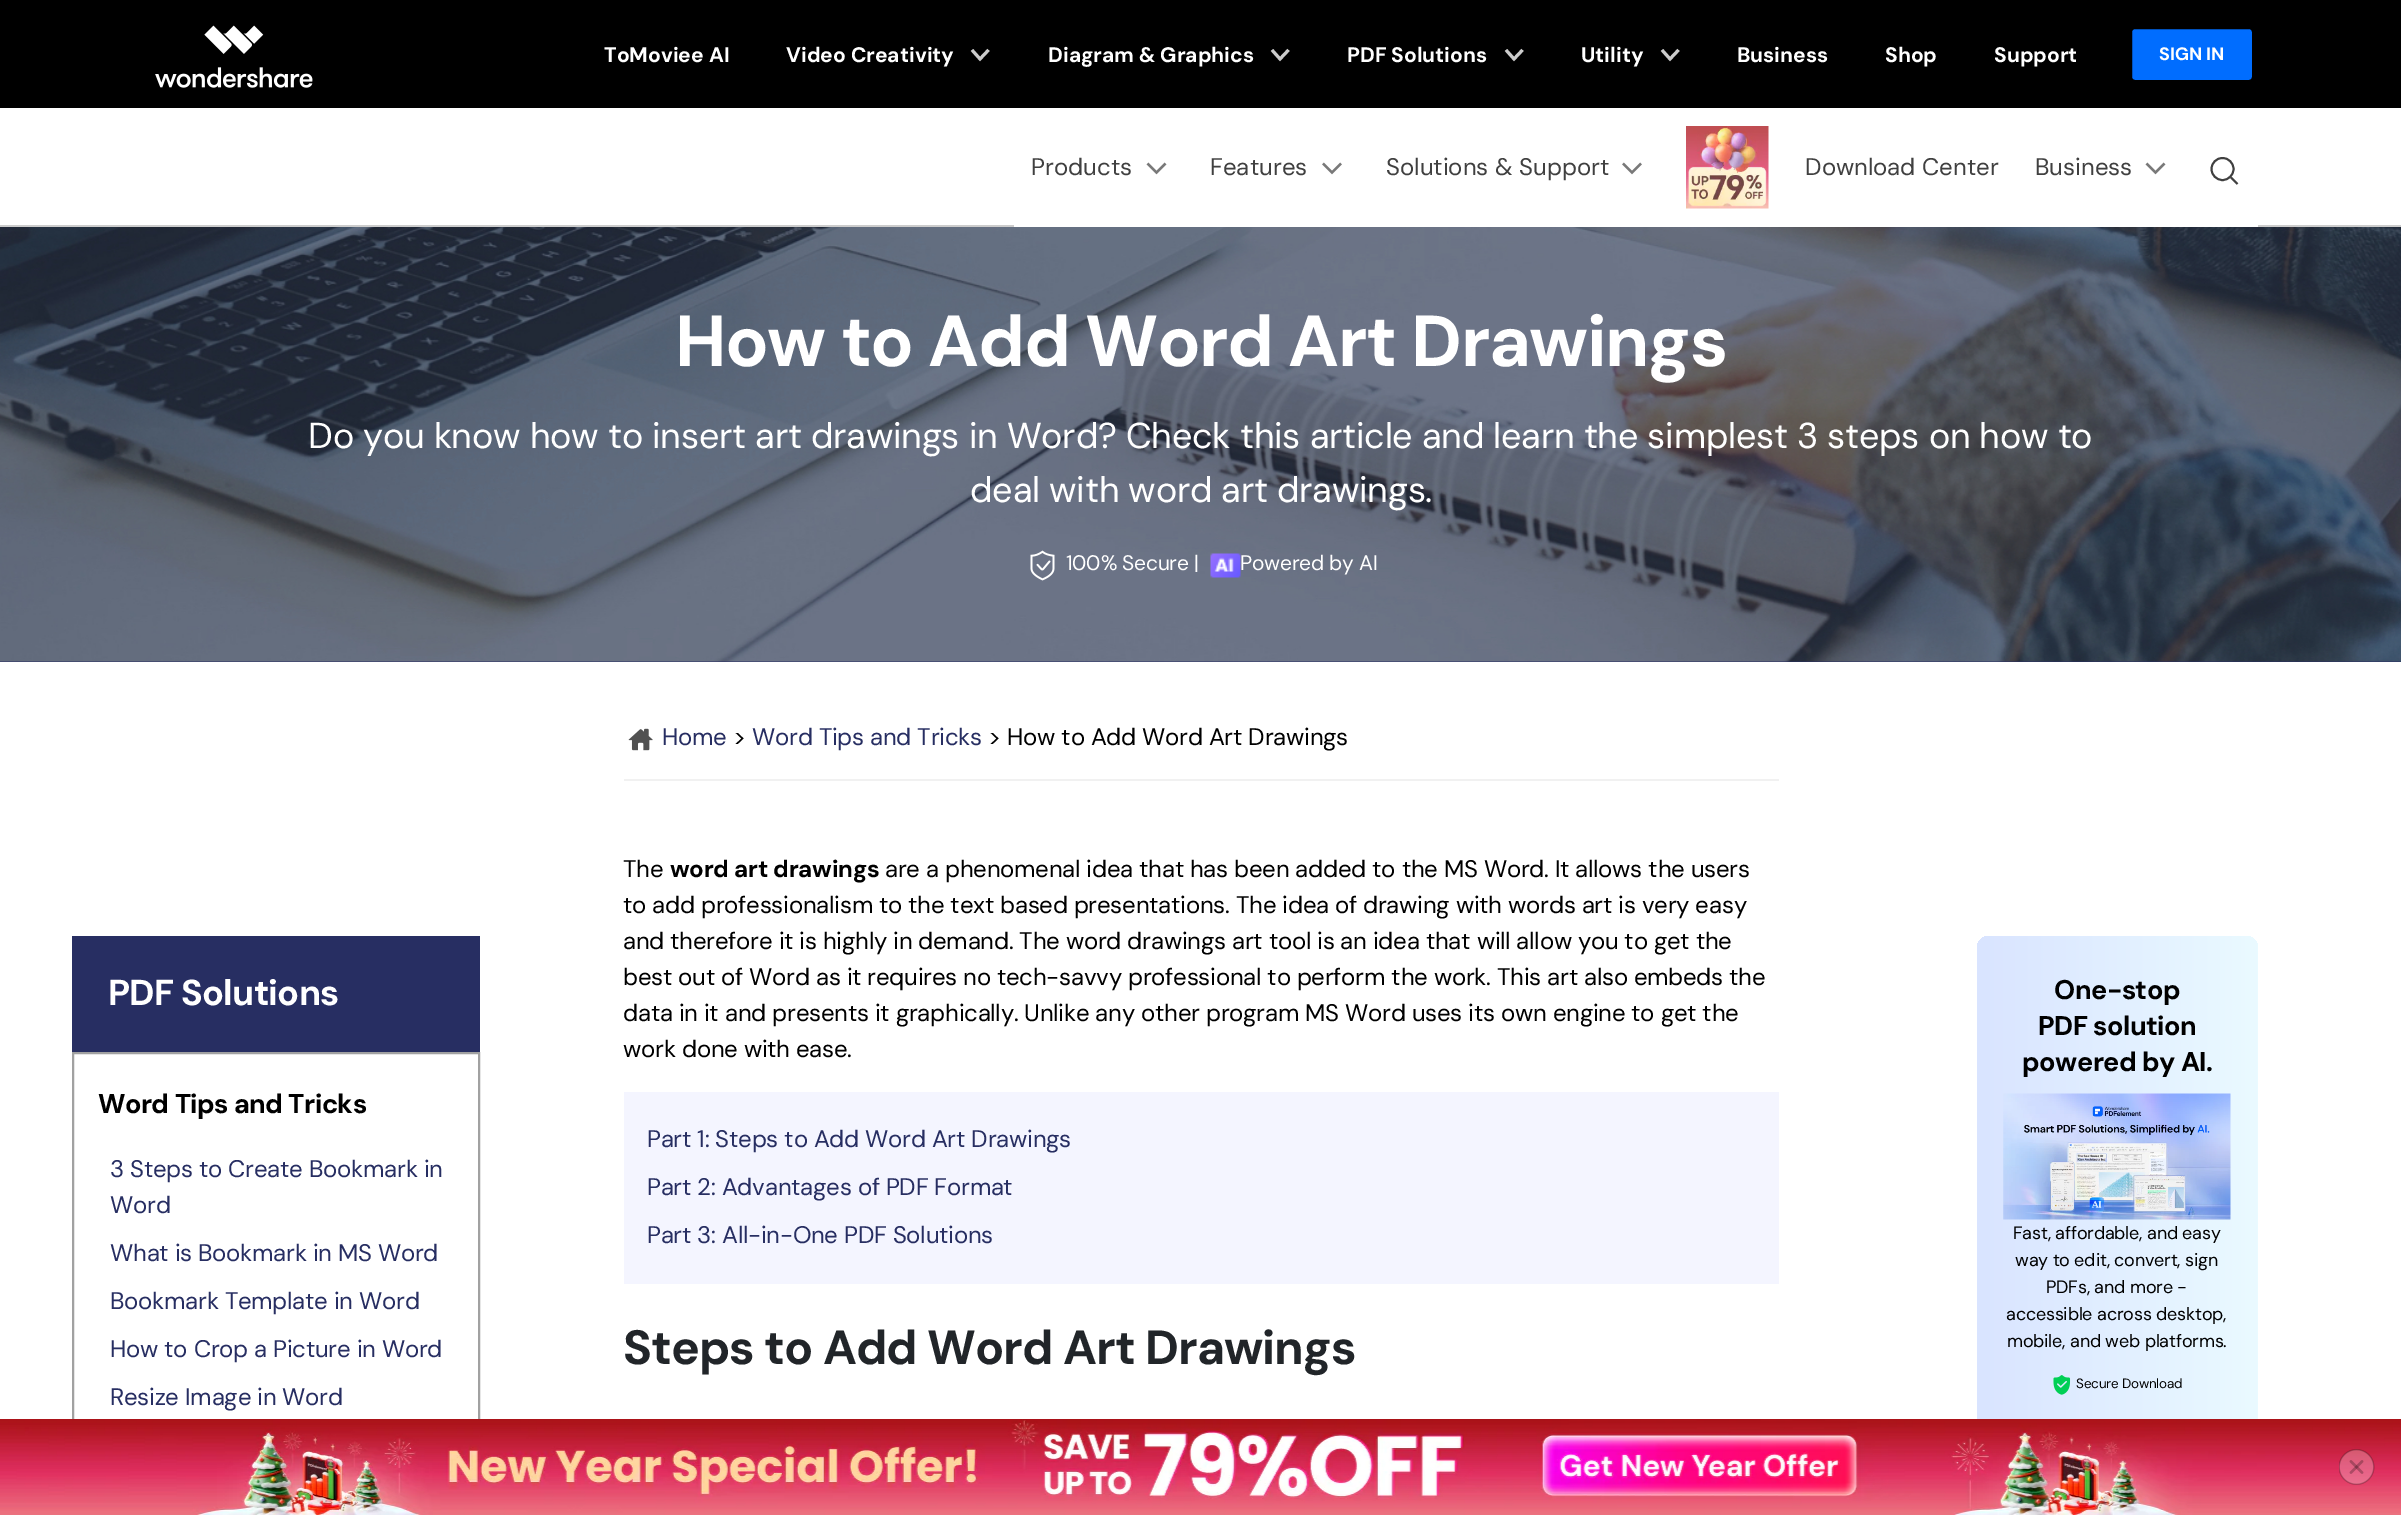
%!PS
<< /PageSize [2401 1515] >> setpagedevice
/mt/moveto load def
/li/lineto load def
/fl/fill load def
/st/stroke load def
/gs/gsave load def
/gr/grestore load def
/lw/setlinewidth load def
/co { dup -16 bitshift 255 div exch dup -8 bitshift 255 and 255 div exch 255 and 255 div setrgbcolor } def
/fn { [ exch dup neg 0 0 3 -1 roll 0 0 ] selectfont } def
/tx { co fn moveto show } def
/bx { co rectfill } def
/ci { newpath 0 360 arc closepath } def
/rr { 5 dict begin { /r /h /w /y /x } { exch def } forall
  x r add y moveto x w add y 2 copy h add r arct x w add y h add x 1 index r arct
  x y h add x y r arct x y 2 copy exch w add exch r arct closepath end } def
/im { 5 dict begin { /h /w /y /x /name } { exch def } forall
  gsave x y translate w h scale
  w h 8 [w 0 0 h 0 0] name (r) file false 3 colorimage grestore end } def
0 1515 translate 1 -1 scale
4 setmiterlimit
0 0 2401 1515 16#FFFFFF bx
0 0 2401 108 16#000000 bx
(media/1.raw) 155 25 158 63 im
16#CCCCCC co
3 lw
988.5 50 mt 980 59 li 972 50 li st
1288.5 50 mt 1280 59 li 1272 50 li st
1522.5 50 mt 1514 59 li 1506 50 li st
1678.5 50 mt 1670 59 li 1662 50 li st
16#006DFF co
2130.5 27.5 123 54 4.5 rr gs fl gr
16#000000 co
st
0 225 2401 2 16#CCCCCC bx
1014 225 1244 2 16#FFFFFF bx
16#797979 co
2.2 lw
1147.5 163.5 mt 1156.5 172.5 li 1165.5 163.5 li st
1323 163.5 mt 1332 172.5 li 1341 163.5 li st
1623 163.5 mt 1632 172.5 li 1641 163.5 li st
(media/2.raw) 1686 126 83 83 im
2146.5 163.5 mt 2155.5 172.5 li 2164.5 163.5 li st
16#404040 co
1.9 lw
2222.5 169 11 ci st
2 setlinejoin
2231 177.5 mt 2237.5 184 li st
0 661 2401 1 16#272E62 bx
(media/3.raw) 0 227 2401 435 im
(media/4.raw) 1030 550 25 31 im
(media/5.raw) 1210 553 31 25 im
624 779 1155 2 16#F1F1F1 bx
(media/6.raw) 628 728 25 23 im
72 936 408 116 16#272E62 bx
16#A1A1A1 co
2 lw
0 setlinejoin
73 1053 406 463 rectstroke
624 1092 1155 192 16#F4F5FF bx
gs 1977 936 281 497 12 rr clip newpath
<< /ShadingType 2 /ColorSpace /DeviceRGB /Coords [1976 1184 2258 1184] /Extend [true true] /Function << /FunctionType 2 /Domain [0 1] /C0 [.851 .894 1] /C1 [.918 .98 1] /N 1 >> >> shfill gr
(media/7.raw) 2003 1093 228 127 im
(media/8.raw) 2053 1375 18 20 im
(media/9.raw) 0 1419 2401 96 im
(media/10.raw) 2339 1449 36 36 im
(ToMoviee AI) 604 62 /DMSans-Bold 21 16#FFFFFF tx
(Video Creativity) 786 62 /DMSans-Bold 21 16#FFFFFF tx
(Diagram & Graphics) 1048 62 /DMSans-Bold 21 16#FFFFFF tx
(PDF Solutions) 1347 62 /DMSans-Bold 21 16#FFFFFF tx
(Utility) 1581 62 /DMSans-Bold 21 16#FFFFFF tx
(Business) 1737 62 /DMSans-Bold 21 16#FFFFFF tx
(Shop) 1885 62 /DMSans-Bold 21 16#FFFFFF tx
(Support) 1994 62 /DMSans-Bold 21 16#FFFFFF tx
(SIGN IN) 2159 60 /DMSans-Bold 18 16#FFFFFF tx
(Products) 1031 175 /DMSans-Regular 24 16#404040 tx
(Features) 1210 175 /DMSans-Regular 24 16#404040 tx
(Solutions & Support) 1386 175 /DMSans-Regular 24 16#404040 tx
(Download Center) 1805 175 /DMSans-Regular 24 16#404040 tx
(Business) 2035 175 /DMSans-Regular 24 16#404040 tx
/DMSans-Bold 72 fn
16#FFFFFF co
675 366 mt -1.45 0 (How to Add Word Art Drawings) ashow
/DMSans-Regular 36 fn
308 448 mt -.24 0 (Do you know how to insert art drawings in Word? Check this article and learn the simplest 3 steps on how to) ashow
970 502 mt -.24 0 (deal with word art drawings.) ashow
/DMSans-Regular 21 fn
1066 570 mt -.24 0 (100% Secure |) ashow
1240 570 mt -.24 0 (Powered by AI) ashow
/DMSans-Regular 24 fn
16#272E62 co
662 745 mt -.24 0 (Home) ashow
16#000000 co
733 745 mt -.24 0 (>) ashow
16#272E62 co
752 745 mt -.24 0 (Word Tips and Tricks) ashow
16#000000 co
988 745 mt -.24 0 (> How to Add Word Art Drawings) ashow
/DMSans-Bold 36 fn
16#FFFFFF co
108 1005 mt -.75 0 (PDF Solutions) ashow
/DMSans-Bold 27 fn
16#000000 co
98 1113 mt -.5 0 (Word Tips and Tricks) ashow
/DMSans-Regular 24 fn
16#272E62 co
110 1177 mt -.24 0 (3 Steps to Create Bookmark in) ashow
110 1213 mt -.24 0 (Word) ashow
110 1261 mt -.24 0 (What is Bookmark in MS Word) ashow
110 1309 mt -.24 0 (Bookmark Template in Word) ashow
110 1357 mt -.24 0 (How to Crop a Picture in Word) ashow
110 1405 mt -.24 0 (Resize Image in Word) ashow
16#000000 co
623 877 mt -.24 0 (The) ashow
/DMSans-Bold 24 fn
670 877 mt -.24 0 (word art drawings) ashow
/DMSans-Regular 24 fn
885 877 mt -.24 0 (are a phenomenal idea that has been added to the MS Word. It allows the users) ashow
623 913 mt -.24 0 (to add professionalism to the text based presentations. The idea of drawing with words art is very easy) ashow
623 949 mt -.24 0 (and therefore it is highly in demand. The word drawings art tool is an idea that will allow you to get the) ashow
623 985 mt -.24 0 (best out of Word as it requires no tech-savvy professional to perform the work. This art also embeds the) ashow
623 1021 mt -.24 0 (data in it and presents it graphically. Unlike any other program MS Word uses its own engine to get the) ashow
623 1057 mt -.24 0 (work done with ease.) ashow
16#272E62 co
647 1147 mt -.24 0 (Part 1: Steps to Add Word Art Drawings) ashow
647 1195 mt -.24 0 (Part 2: Advantages of PDF Format) ashow
647 1243 mt -.24 0 (Part 3: All-in-One PDF Solutions) ashow
/DMSans-Bold 48 fn
16#212529 co
623 1364 mt -.95 0 (Steps to Add Word Art Drawings) ashow
/DMSans-Bold 27 fn
16#000000 co
2054 999 mt -.5 0 (One-stop) ashow
2038 1035 mt -.5 0 (PDF solution) ashow
2022 1071 mt -.5 0 (powered by AI.) ashow
/DMSans-Regular 18 fn
2013 1239 mt -.2 0 (Fast, affordable, and easy) ashow
2015 1266 mt -.2 0 (way to edit, convert, sign) ashow
2046 1293 mt -.2 0 (PDFs, and more -) ashow
2006 1320 mt -.2 0 (accessible across desktop,) ashow
2007 1347 mt -.2 0 (mobile, and web platforms.) ashow
/DMSans-Regular 13.5 fn
2076 1388 mt -.2 0 (Secure Download) ashow
showpage
